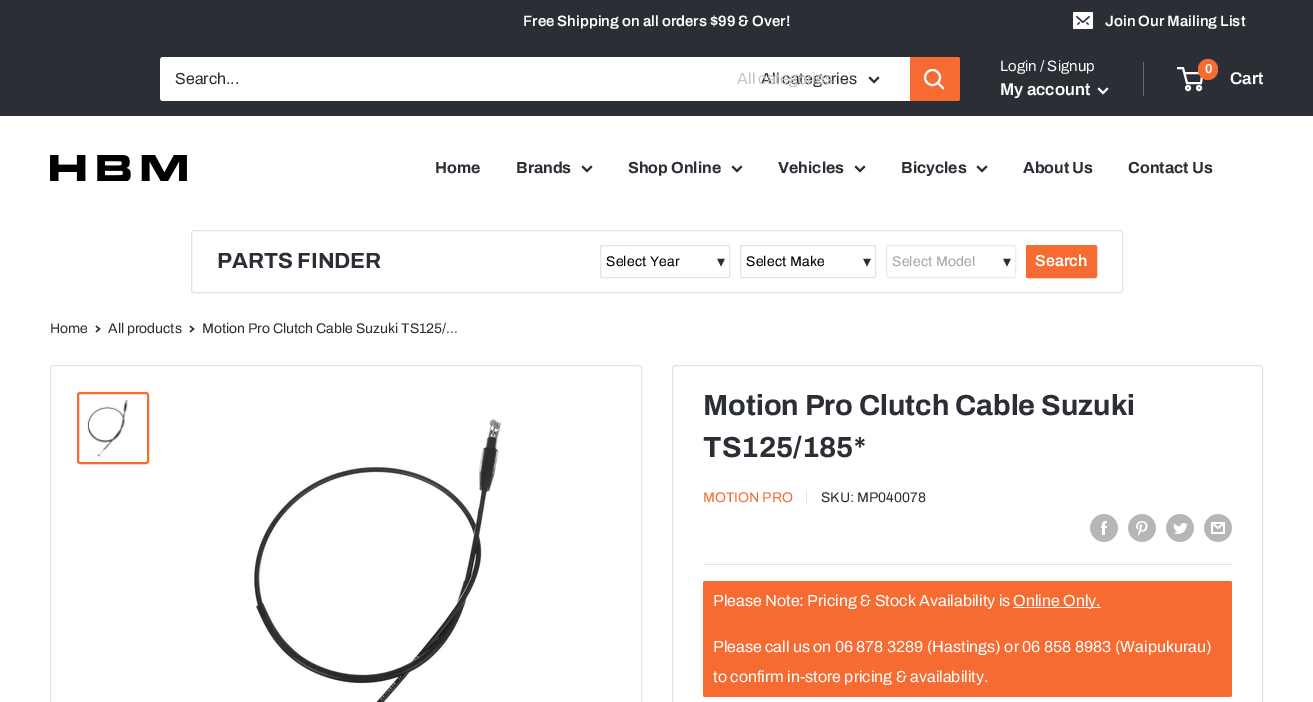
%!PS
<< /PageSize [1313 702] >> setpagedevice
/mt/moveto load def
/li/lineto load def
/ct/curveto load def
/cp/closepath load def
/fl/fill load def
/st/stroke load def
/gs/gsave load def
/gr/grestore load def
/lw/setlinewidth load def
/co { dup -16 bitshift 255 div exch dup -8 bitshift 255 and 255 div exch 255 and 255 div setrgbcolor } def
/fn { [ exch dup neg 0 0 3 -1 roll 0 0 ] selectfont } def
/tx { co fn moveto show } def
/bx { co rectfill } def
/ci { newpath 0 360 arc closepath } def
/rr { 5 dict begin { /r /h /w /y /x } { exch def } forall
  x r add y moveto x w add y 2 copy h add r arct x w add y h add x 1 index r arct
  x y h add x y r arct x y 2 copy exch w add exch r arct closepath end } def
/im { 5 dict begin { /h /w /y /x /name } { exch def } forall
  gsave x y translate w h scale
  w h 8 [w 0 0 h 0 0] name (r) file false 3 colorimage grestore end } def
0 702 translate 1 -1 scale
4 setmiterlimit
0 0 1313 702 16#FFFFFF bx
0 0 1313 116 16#2B2E34 bx
(media/1.raw) 1073 12 20 17 im
16#FFFFFF co
160 57 800 44 3 rr fl
16#2B2E34 co
2 lw
2 setlinecap
878 78 mt 874 82 li 870 78 li st
16#F66B32 co
910 57 mt 957 57 li 958.5 57 960 58.5 960 60 ct 960 98 li 960 99.5 958.5 101 957 101 ct 910 101 li cp fl
16#FFFFFF co
943 88 mt 938 83 li st
0 setlinecap
932.5 77.5 7.5 ci st
1143 62 1 34 16#6B6D71 bx
16#FFFFFF co
2 setlinecap
1107 89 mt 1103 93 li 1099 89 li st
0 setlinecap
1188 88 2 ci st
1199 88 2 ci st
1184.5 73 mt 1202.5 73 li 1201 83 li 1187 83 li 1183 68 li 1177 68 li st
16#F66B32 co
1198 59 20 21 10 rr fl
(media/2.raw) 50 155 137 26 im
16#2B2E34 co
2 setlinecap
591 167 mt 587 171 li 583 167 li st
741 167 mt 737 171 li 733 167 li st
864 167 mt 860 171 li 856 167 li st
986 167 mt 982 171 li 978 167 li st
16#E1E3E4 co
1 lw
0 setlinecap
191.5 230.5 931 62 2.5 rr st
600.5 245.5 129 32 1.5 rr st
740.5 245.5 135 32 1.5 rr st
16#EAEBEC co
886.5 245.5 129 32 1.5 rr st
16#F66B32 co
1026.5 245.5 70 32 1.5 rr gs fl gr
st
16#2B2E34 co
1.3 lw
2 setlinecap
96.5 326.5 mt 99.5 329 li 96.5 331.5 li st
190.5 326.5 mt 193.5 329 li 190.5 331.5 li st
16#E1E3E4 co
1 lw
0 setlinecap
50.5 365.5 591 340 2.5 rr st
16#F66B32 co
2 lw
78 393 70 70 2 rr st
(media/3.raw) 87 399 41 60 im
(media/4.raw) 251 419 250 283 im
16#E1E3E4 co
1 lw
672.5 365.5 590 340 2.5 rr st
806 491 1 13 16#E1E3E4 bx
(media/5.raw) 1090 514 28 28 im
(media/6.raw) 1128 514 28 28 im
(media/7.raw) 1166 514 28 28 im
(media/8.raw) 1204 514 28 28 im
703 564 529 1 16#E1E3E4 bx
16#F66B32 co
703 581 529 116 2 rr fl
1013 607 88 1 16#FFFFFF bx
(Free Shipping on all orders $99 & Over!) 523 26 /Archivo-SemiBold 15 16#FFFFFF tx
(Join Our Mailing List) 1105 26 /Archivo-SemiBold 15 16#FFFFFF tx
(Search...) 175 84 /Archivo-Regular 16 16#2B2E34 tx
(All categories) 761 84 /Archivo-Regular 16 16#2B2E34 tx
(All categories) 737 84 /Archivo-Regular 16 16#C8C8CA tx
(Login / Signup) 1000 71 /Archivo-Regular 15 16#FFFFFF tx
(My account) 1000 95 /Archivo-SemiBold 17 16#FFFFFF tx
(0) 1205 73 /Archivo-SemiBold 13 16#FFFFFF tx
(Cart) 1230 84 /Archivo-SemiBold 17 16#FFFFFF tx
(Home) 435 173 /Archivo-Bold 16 16#2B2E34 tx
(Brands) 516 173 /Archivo-Bold 16 16#2B2E34 tx
(Shop Online) 628 173 /Archivo-Bold 16 16#2B2E34 tx
(Vehicles) 778 173 /Archivo-Bold 16 16#2B2E34 tx
(Bicycles) 901 173 /Archivo-Bold 16 16#2B2E34 tx
(About Us) 1023 173 /Archivo-Bold 16 16#2B2E34 tx
(Contact Us) 1128 173 /Archivo-Bold 16 16#2B2E34 tx
(PARTS FINDER) 217 268 /Archivo-Bold 22 16#2B2E34 tx
/Archivo-Regular 14 fn
16#000000 co
606 266 mt .2 0 (Select Year) ashow
(▾) 717 267 /DejaVuSans-Regular 16 16#2B2E34 tx
/Archivo-Regular 14 fn
16#000000 co
746 266 mt .2 0 (Select Make) ashow
(▾) 863 267 /DejaVuSans-Regular 16 16#2B2E34 tx
/Archivo-Regular 14 fn
16#A6A6A6 co
892 266 mt .2 0 (Select Model) ashow
(▾) 1003 267 /DejaVuSans-Regular 16 16#2B2E34 tx
(Search) 1035 266 /Archivo-SemiBold 16 16#FFFFFF tx
(Home) 50 333 /Archivo-Regular 14 16#2B2E34 tx
(All products) 108 333 /Archivo-Regular 14 16#2B2E34 tx
(Motion Pro Clutch Cable Suzuki TS125/...) 202 333 /Archivo-Regular 14 16#2B2E34 tx
(Motion Pro Clutch Cable Suzuki) 703 415 /Archivo-Bold 29 16#2B2E34 tx
(TS125/185*) 703 457 /Archivo-Bold 29 16#2B2E34 tx
(MOTION PRO) 703 502 /Archivo-Regular 14 16#F66B32 tx
(SKU: MP040078) 821 502 /Archivo-Regular 14 16#2B2E34 tx
(Please Note: Pricing & Stock Availability is) 713 606 /Archivo-Regular 16 16#FFFFFF tx
(Online Only.) 1013 606 /Archivo-Regular 16 16#FFFFFF tx
(Please call us on 06 878 3289 \(Hastings\) or 06 858 8983 \(Waipukurau\)) 713 652 /Archivo-Regular 16 16#FFFFFF tx
(to confirm in-store pricing & availability.) 713 682 /Archivo-Regular 16 16#FFFFFF tx
showpage
